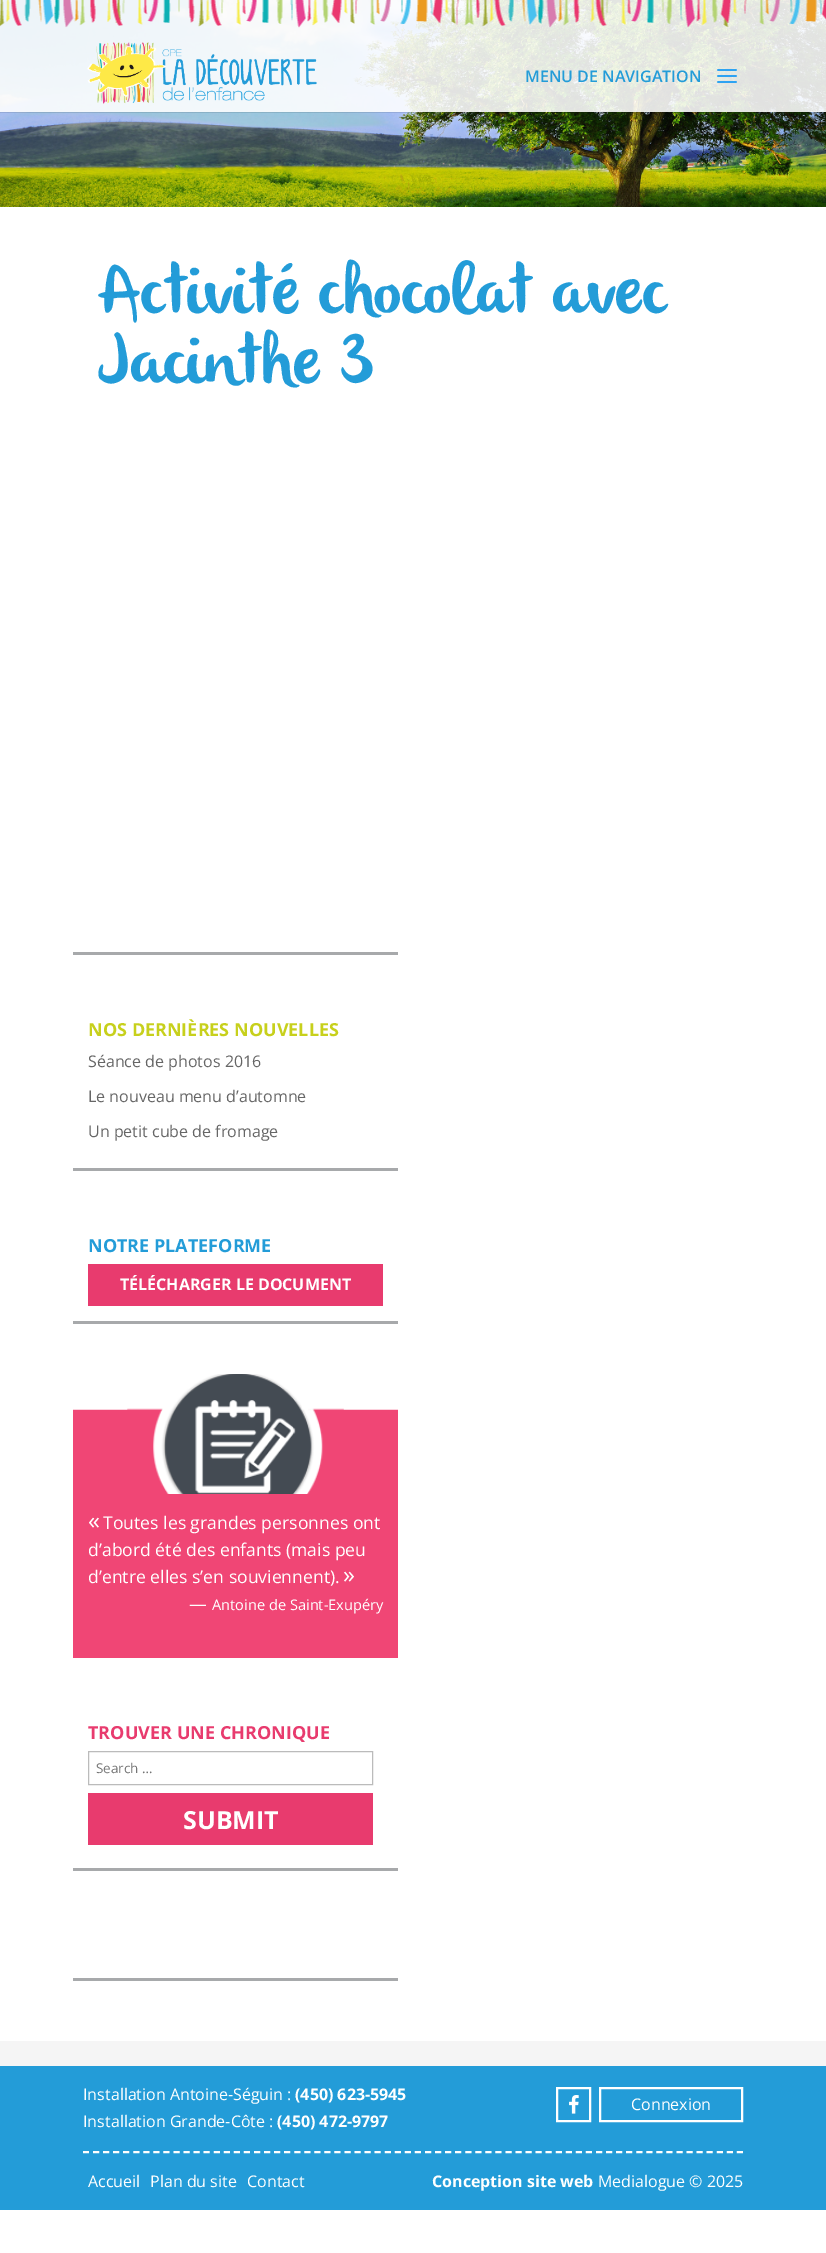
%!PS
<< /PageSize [826 2253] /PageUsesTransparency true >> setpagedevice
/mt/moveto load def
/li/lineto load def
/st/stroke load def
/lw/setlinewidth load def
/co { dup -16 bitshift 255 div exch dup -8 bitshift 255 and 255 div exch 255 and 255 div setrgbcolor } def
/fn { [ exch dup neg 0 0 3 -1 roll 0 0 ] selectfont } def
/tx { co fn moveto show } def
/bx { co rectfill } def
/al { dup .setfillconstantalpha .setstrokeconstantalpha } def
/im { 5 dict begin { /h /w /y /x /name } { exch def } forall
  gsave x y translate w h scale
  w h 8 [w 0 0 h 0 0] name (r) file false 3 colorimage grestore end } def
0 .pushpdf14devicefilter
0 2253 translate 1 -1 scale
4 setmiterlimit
0 0 826 2253 16#FFFFFF bx
(media/4.raw) 0 0 826 207 im
0.1 al
0 112 826 1 16#000000 bx
0.88 al
0 0 826 112 16#FFFFFF bx
1 al
(media/1.raw) 0 0 826 28 im
(media/2.raw) 87 42 230 62 im
(media/3.raw) 717 69 20 14 im
73 952 325 3 16#A7A9AB bx
73 1168 325 3 16#A7A9AB bx
73 1321 325 3 16#A7A9AB bx
88 1264 295 42 16#E83B6E bx
(media/5.raw) 73 1374 325 120 im
73 1494 325 164 16#F04675 bx
73 1868 325 3 16#A7A9AB bx
16#BBBBBB co
88.5 1751.5 284 33 rectstroke
88 1793 285 52 16#E83B6E bx
73 1978 325 3 16#A7A9AB bx
0 2041 826 25 16#F5F5F5 bx
0 2066 826 144 16#239CD8 bx
16#FFFFFF co
2 lw
[6 4.06] 0 setdash
83 2152 mt 743 2152 li st
[] 0 setdash
557 2088 33 33 rectstroke
(media/6.raw) 569 2095 10 19 im
600 2088 142 33 rectstroke
(MENU DE NAVIGATION) 525 82 /OpenSans-SemiBold 16 16#239CD8 tx
(Activité chocolat avec) 98 313 /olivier-Regular 70 16#239CD8 tx
(Jacinthe 3) 98 383 /olivier-Regular 70 16#239CD8 tx
(NOS DERNIÈRES NOUVELLES) 88 1036 /OpenSans-Bold 18 16#C7D01C tx
(Séance de photos 2016) 88 1067 /OpenSans-Regular 16 16#666666 tx
(Le nouveau menu d’automne) 88 1102 /OpenSans-Regular 16 16#666666 tx
(Un petit cube de fromage) 88 1137 /OpenSans-Regular 16 16#666666 tx
(NOTRE PLATEFORME) 88 1252 /OpenSans-Bold 18 16#239CD8 tx
(TÉLÉCHARGER LE DOCUMENT) 120 1290 /OpenSans-Bold 16 16#FFFFFF tx
(«) 88 1529 /OpenSans-Regular 24 16#FFFFFF tx
(Toutes les grandes personnes ont) 103 1529 /OpenSans-Regular 17.6 16#FFFFFF tx
(d’abord été des enfants \(mais peu) 88 1556 /OpenSans-Regular 17.6 16#FFFFFF tx
(d’entre elles s’en souviennent\).) 88 1583 /OpenSans-Regular 17.6 16#FFFFFF tx
(») 343 1583 /OpenSans-Regular 24 16#FFFFFF tx
(—) 189 1610 /OpenSans-Regular 17.6 16#FFFFFF tx
(Antoine de Saint-Exupéry) 212 1610 /OpenSans-Regular 14.6 16#FFFFFF tx
(TROUVER UNE CHRONIQUE) 88 1739 /OpenSans-Bold 18 16#E83B6E tx
(Search …) 96 1773 /OpenSans-Regular 13.5 16#757575 tx
(SUBMIT) 183 1829 /OpenSans-Bold 25 16#FFFFFF tx
(Installation Antoine-Séguin :) 83 2100 /OpenSans-Regular 16 16#FFFFFF tx
(\(450\) 623-5945) 295 2100 /OpenSans-Bold 16 16#FFFFFF tx
(Installation Grande-Côte :) 83 2127 /OpenSans-Regular 16 16#FFFFFF tx
(\(450\) 472-9797) 277 2127 /OpenSans-Bold 16 16#FFFFFF tx
(Connexion) 631 2110 /OpenSans-Regular 16 16#FFFFFF tx
(Accueil) 88 2187 /OpenSans-Regular 16 16#FFFFFF tx
(Plan du site) 150 2187 /OpenSans-Regular 16 16#FFFFFF tx
(Contact) 247 2187 /OpenSans-Regular 16 16#FFFFFF tx
(Conception site web) 432 2187 /OpenSans-Bold 16 16#FFFFFF tx
(Medialogue © 2025) 598 2187 /OpenSans-Regular 16 16#FFFFFF tx
.poppdf14devicefilter showpage
